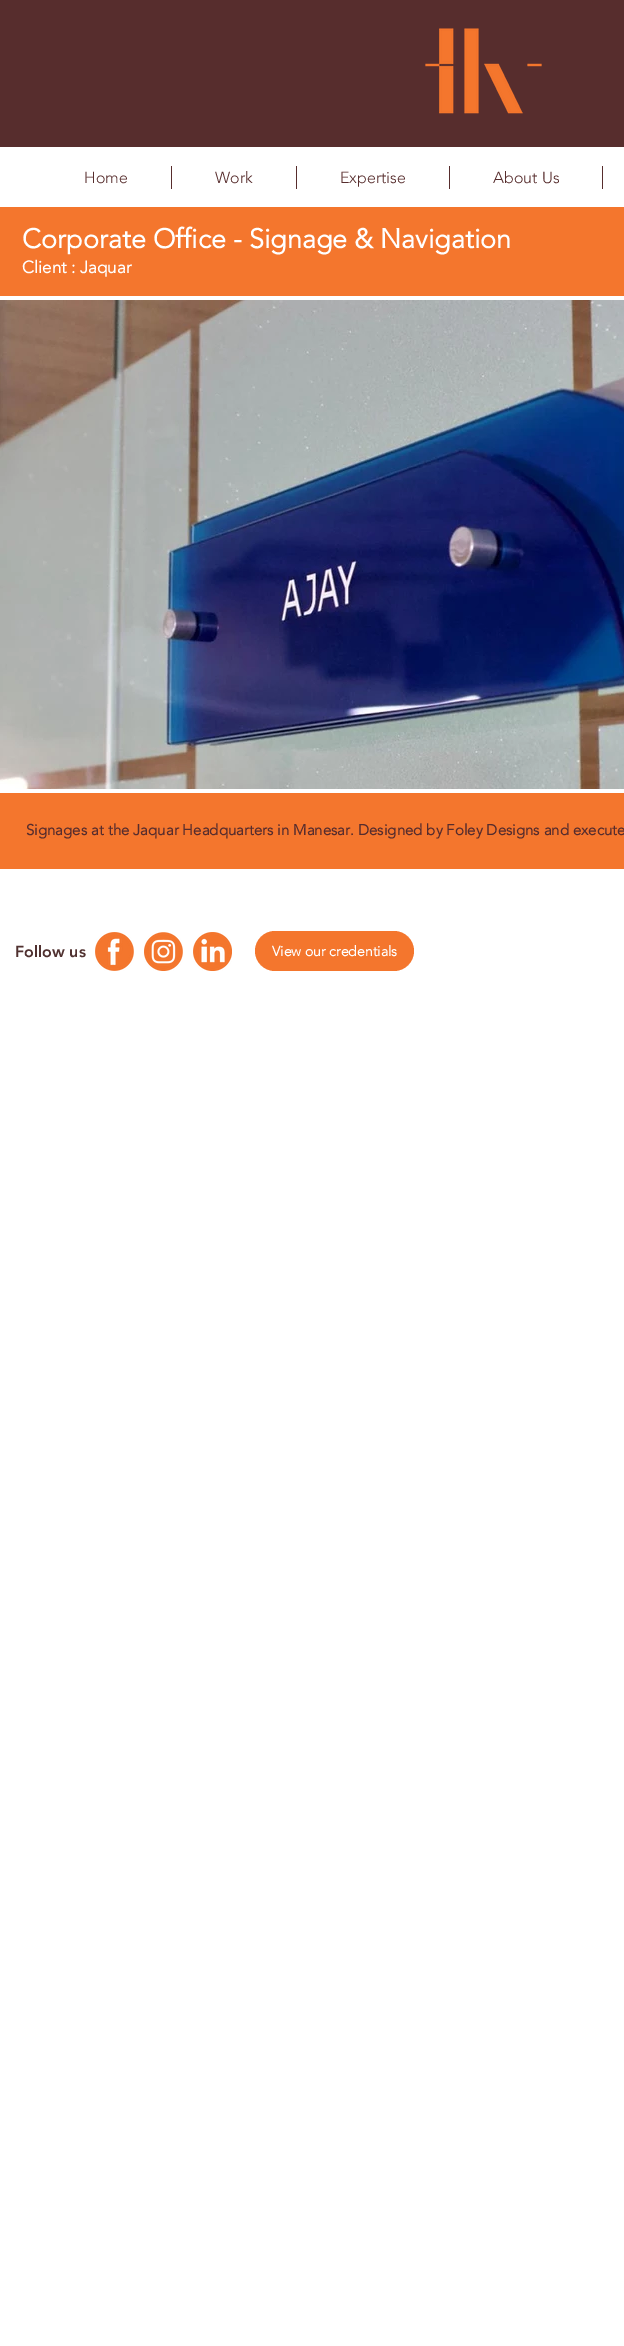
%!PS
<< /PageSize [624 2346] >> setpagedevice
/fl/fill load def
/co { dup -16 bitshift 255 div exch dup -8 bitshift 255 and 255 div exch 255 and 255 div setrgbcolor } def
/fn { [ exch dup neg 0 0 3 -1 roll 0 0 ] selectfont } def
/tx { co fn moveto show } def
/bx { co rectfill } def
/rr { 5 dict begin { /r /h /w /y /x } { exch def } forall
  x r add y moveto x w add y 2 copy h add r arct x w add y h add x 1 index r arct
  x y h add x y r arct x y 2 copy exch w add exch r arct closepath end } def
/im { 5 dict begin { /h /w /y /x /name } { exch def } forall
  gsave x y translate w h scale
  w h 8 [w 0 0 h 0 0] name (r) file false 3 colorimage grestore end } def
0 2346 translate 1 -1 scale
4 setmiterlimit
0 0 624 2346 16#FFFFFF bx
0 0 624 147 16#572D2D bx
(media/1.raw) 425 28 117 86 im
171 166 1 23 16#572D2D bx
296 166 1 23 16#572D2D bx
449 166 1 23 16#572D2D bx
602 166 1 23 16#572D2D bx
0 207 624 89 16#F4762D bx
(media/2.raw) 0 300 624 489 im
0 793 624 76 16#F4762D bx
(media/3.raw) 95 932 39 39 im
(media/4.raw) 144 932 39 39 im
(media/5.raw) 193 932 39 39 im
255 931 159 40 20 rr fl
(Home) 84 183 /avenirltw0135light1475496-Light 16 16#572D2D tx
(Work) 215 183 /avenirltw0135light1475496-Light 16 16#572D2D tx
(Expertise) 340 183 /avenirltw0135light1475496-Light 16 16#572D2D tx
(About Us) 493 183 /avenirltw0135light1475496-Light 16 16#572D2D tx
(Corporate Office - Signage & Navigation) 22 248 /avenirltw0135light1475496-Bold 27 16#FFFFFF tx
(Client : Jaquar) 22 273 /avenirltw0135light1475496-Bold 17 16#FFFFFF tx
(Signages at the Jaquar Headquarters in Manesar. Designed by Foley Designs and execute) 26 835 /avenirltw0135light1475496-Bold 15 16#572D2D tx
(Follow us) 15 957 /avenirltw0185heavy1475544-Black 16 16#503130 tx
(View our credentials) 272 956 /avenirltw0135light1475496-Bold 14 16#FFFFFF tx
showpage
